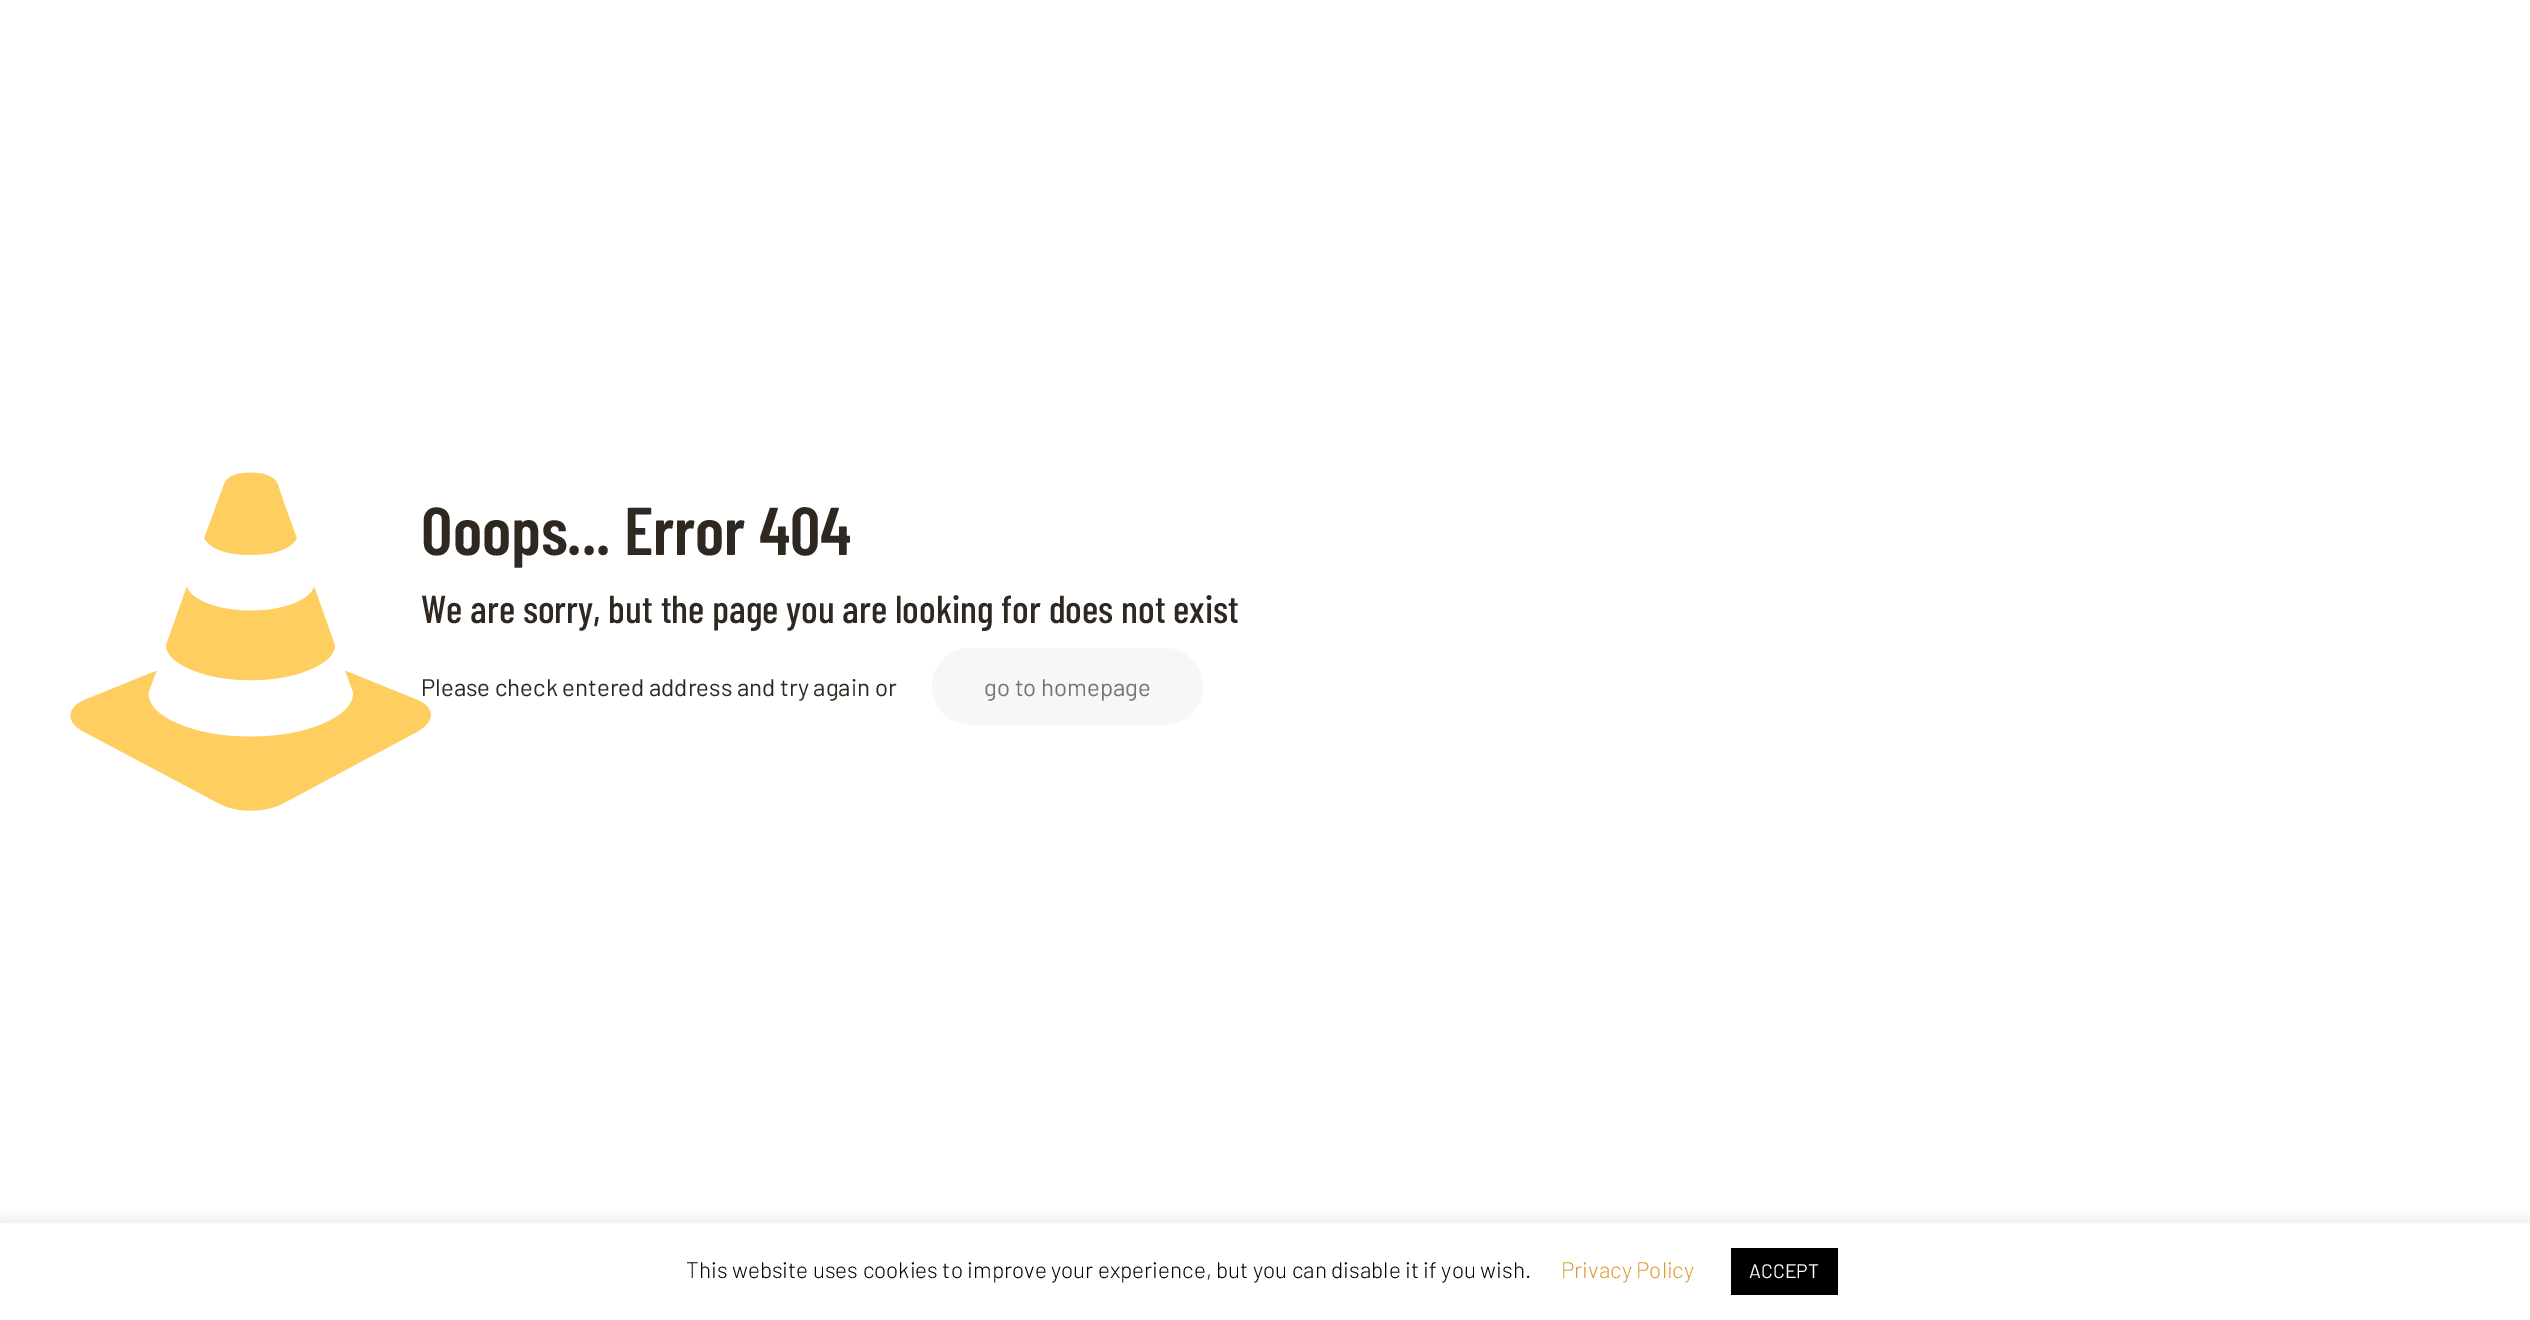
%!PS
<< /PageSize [2530 1320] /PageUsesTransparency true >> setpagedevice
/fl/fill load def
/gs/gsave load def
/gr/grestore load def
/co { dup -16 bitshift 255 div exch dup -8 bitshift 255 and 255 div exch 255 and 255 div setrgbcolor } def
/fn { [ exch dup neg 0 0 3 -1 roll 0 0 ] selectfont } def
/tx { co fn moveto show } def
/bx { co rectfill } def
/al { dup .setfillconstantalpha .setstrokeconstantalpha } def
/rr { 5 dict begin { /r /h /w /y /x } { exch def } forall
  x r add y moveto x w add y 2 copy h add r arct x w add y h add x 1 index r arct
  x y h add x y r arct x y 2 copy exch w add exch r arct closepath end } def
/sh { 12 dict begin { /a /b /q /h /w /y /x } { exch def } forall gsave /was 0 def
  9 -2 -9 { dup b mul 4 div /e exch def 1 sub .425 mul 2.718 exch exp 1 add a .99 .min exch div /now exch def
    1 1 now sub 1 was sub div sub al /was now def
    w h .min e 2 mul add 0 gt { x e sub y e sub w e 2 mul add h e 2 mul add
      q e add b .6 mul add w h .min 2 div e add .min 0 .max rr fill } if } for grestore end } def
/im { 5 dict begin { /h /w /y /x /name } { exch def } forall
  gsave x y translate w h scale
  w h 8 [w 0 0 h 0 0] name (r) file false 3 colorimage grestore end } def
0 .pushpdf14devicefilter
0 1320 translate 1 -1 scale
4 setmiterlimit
0 0 2530 1320 16#FFFFFF bx
(media/1.raw) 70 472 361 339 im
16#F7F7F7 co
932 648 271 77 38.5 rr fl
gs
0 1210 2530 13 rectclip
16#ACABAB co
0 1221 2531 98 0 7.5 .3 sh
gr
1731 1248 107 47 16#000000 bx
(Ooops... Error 404) 421 555 /BarlowCondensed-SemiBold 67.5 16#2E2821 tx
(We are sorry, but the page you are looking for does not exist) 421 623 /BarlowCondensed-Medium 39 16#2E2821 tx
(Please check entered address and try again or) 421 696 /Barlow-Regular 24 16#2E2821 tx
(go to homepage) 984 696 /Barlow-Regular 24 16#747474 tx
(This website uses cookies to improve your experience, but you can disable it if you wish.) 686 1278 /Barlow-Light 22.5 16#000000 tx
(Privacy Policy) 1561 1278 /Barlow-Light 22.5 16#DD9933 tx
(ACCEPT) 1749 1278 /Barlow-Regular 19.5 16#FFFFFF tx
.poppdf14devicefilter showpage
